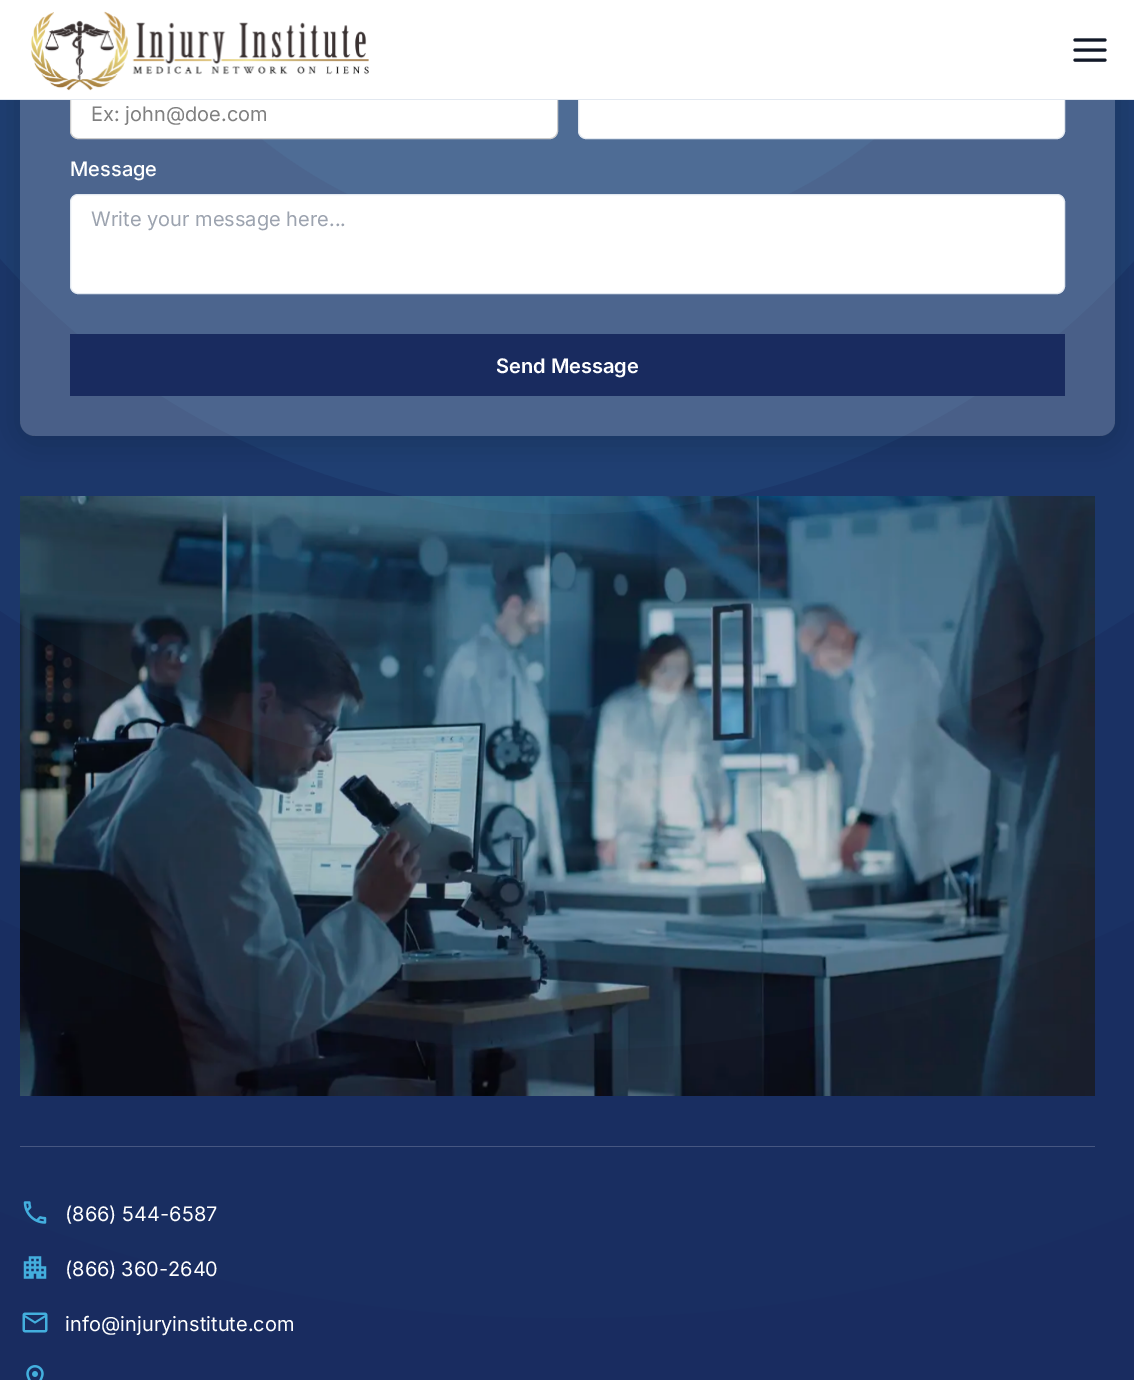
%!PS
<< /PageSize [1134 1380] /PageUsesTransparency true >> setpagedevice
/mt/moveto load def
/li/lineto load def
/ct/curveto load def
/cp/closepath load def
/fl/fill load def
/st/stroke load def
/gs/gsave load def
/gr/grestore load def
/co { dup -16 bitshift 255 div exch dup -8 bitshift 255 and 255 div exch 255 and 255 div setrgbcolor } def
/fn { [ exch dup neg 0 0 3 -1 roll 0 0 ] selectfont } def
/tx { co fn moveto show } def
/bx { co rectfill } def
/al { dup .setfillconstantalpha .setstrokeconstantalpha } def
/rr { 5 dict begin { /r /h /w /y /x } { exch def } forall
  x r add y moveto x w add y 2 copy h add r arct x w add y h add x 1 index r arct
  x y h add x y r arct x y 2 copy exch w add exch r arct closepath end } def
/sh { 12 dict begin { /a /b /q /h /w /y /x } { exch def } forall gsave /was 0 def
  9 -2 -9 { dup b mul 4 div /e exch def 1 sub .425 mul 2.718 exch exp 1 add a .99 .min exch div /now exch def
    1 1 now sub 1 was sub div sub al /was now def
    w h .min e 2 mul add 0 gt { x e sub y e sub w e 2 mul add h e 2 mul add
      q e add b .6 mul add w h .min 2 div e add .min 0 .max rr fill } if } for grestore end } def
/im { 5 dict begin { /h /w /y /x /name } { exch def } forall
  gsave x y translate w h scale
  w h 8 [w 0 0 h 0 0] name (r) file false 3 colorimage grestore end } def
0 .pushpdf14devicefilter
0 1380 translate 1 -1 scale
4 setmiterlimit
0 0 1134 1380 16#192B5F bx
(media/3.raw) 20 496 1075 600 im
20 1146 1075 1 16#47557F bx
(media/4.raw) 23 1201 24 23 im
(media/5.raw) 23 1256 24 23 im
(media/6.raw) 22 1312 26 21 im
(media/7.raw) 26 1365 18 15 im
16#43AFDE co
-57 -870 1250 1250 625 536 .3 sh
gs
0 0 mt 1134 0 li 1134 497 li 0 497 li cp 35 -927 mt 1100 -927 li 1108.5 -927 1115 -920.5 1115 -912 ct 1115 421 li 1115 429.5 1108.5 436 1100 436 ct 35 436 li 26.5 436 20 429.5 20 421 ct 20 -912 li 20 -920.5 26.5 -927 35 -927 ct cp eoclip newpath
16#000000 co
10 -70 1115 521 25 15 .12 sh
gr
0.2 al
16#FFFFFF co
20 -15 1095 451 15 rr fl
1 al
70.5 89.5 487 49 7.5 rr gs fl gr
16#CCCCCC co
st
16#FFFFFF co
578.5 89.5 486 49 7.5 rr gs fl gr
16#E2E8F0 co
st
0 0 1134 99 16#FFFFFF bx
0 99 1134 1 16#E2E8F0 bx
(media/1.raw) 31 11 338 80 im
(media/2.raw) 1073 38 34 24 im
16#FFFFFF co
70.5 194.5 994 99 7.5 rr gs fl gr
16#E2E8F0 co
st
70 334 995 62 16#192B5F bx
(Ex: john@doe.com) 91 121 /Inter-Regular 20 16#808080 tx
(Message) 70 176 /Inter-Medium 20 16#FFFFFF tx
(Write your message here...) 91 226 /Inter-Regular 20 16#9CA3AF tx
(Send Message) 496 373 /Inter-SemiBold 20 16#FFFFFF tx
(\(866\) 544-6587) 65 1221 /Inter-Regular 20 16#FFFFFF tx
65 1276 mt -1 0 32 (\(866\) 360-2640) widthshow
(info@injuryinstitute.com) 65 1331 /Inter-Regular 20 16#FFFFFF tx
.poppdf14devicefilter showpage
